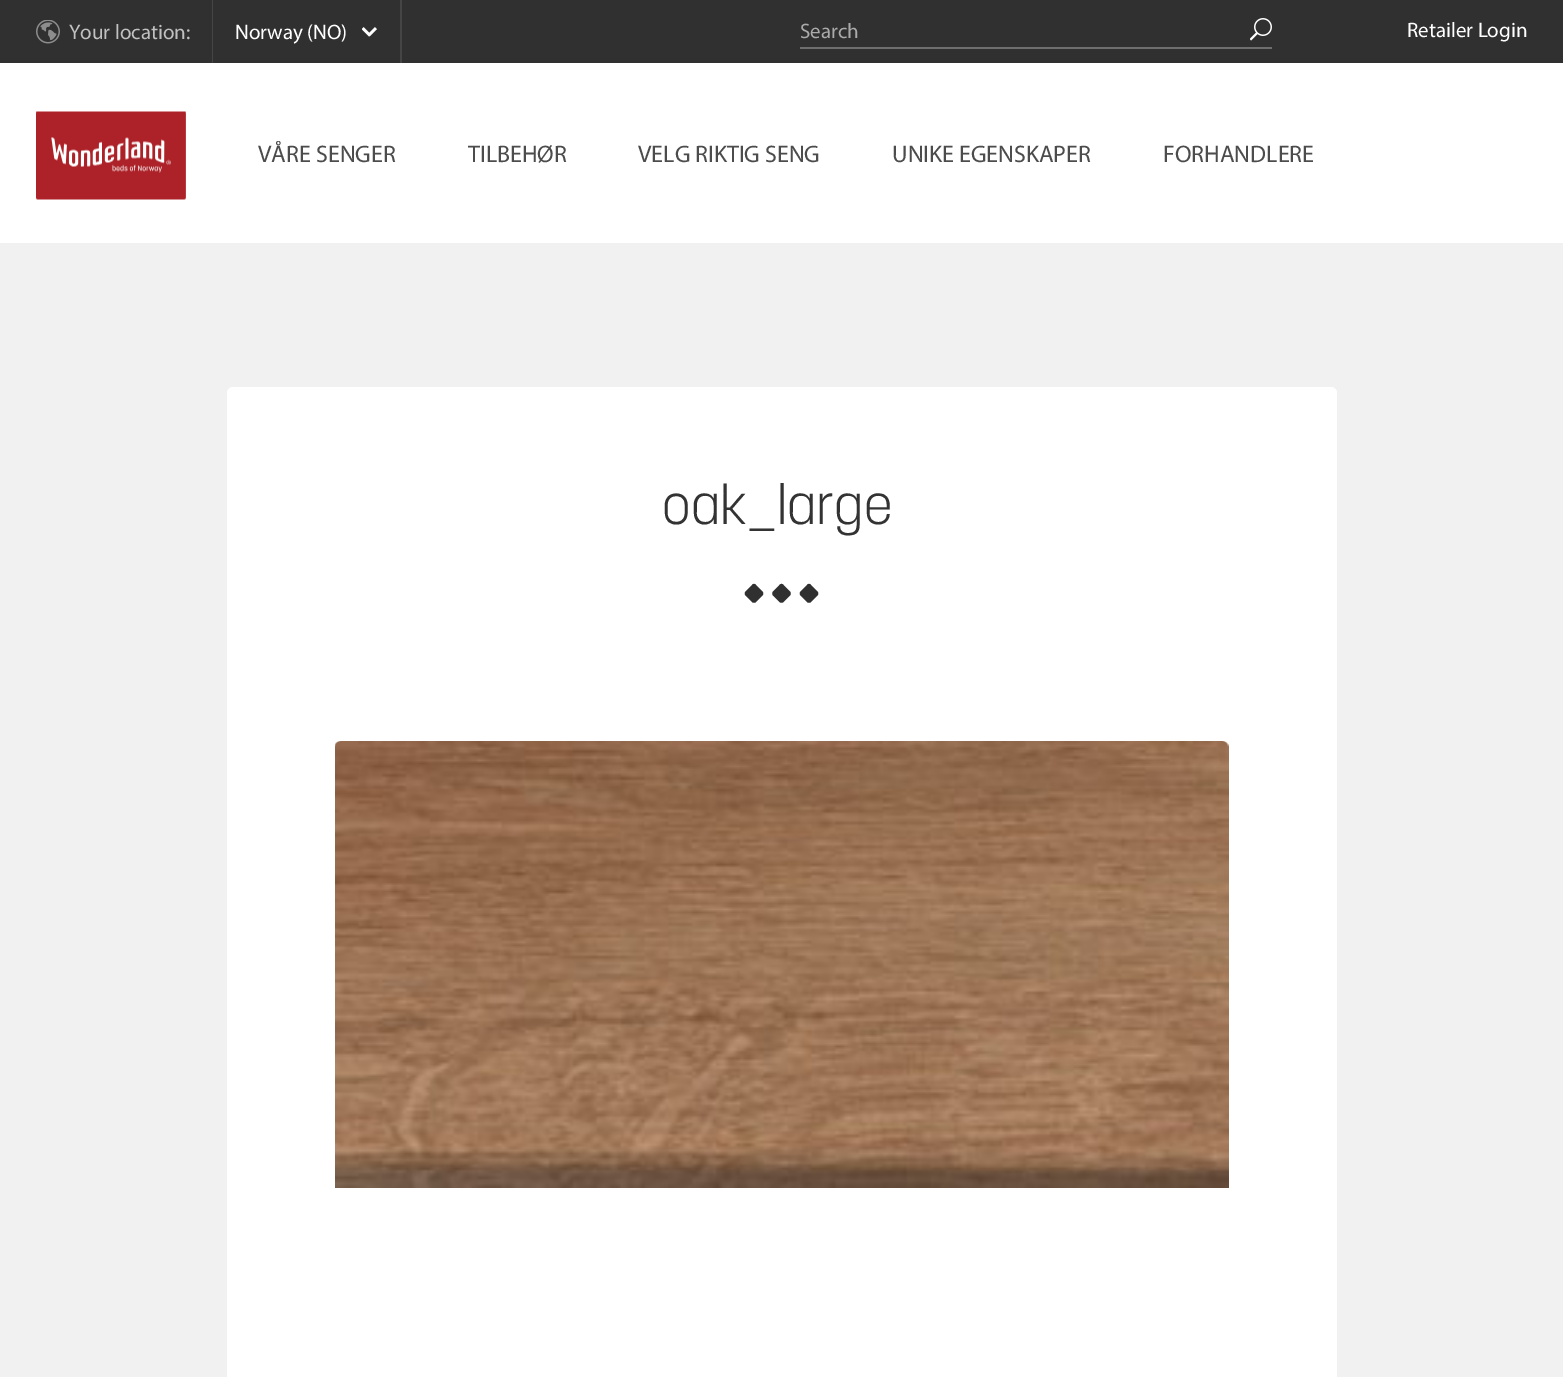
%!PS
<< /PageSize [1563 1377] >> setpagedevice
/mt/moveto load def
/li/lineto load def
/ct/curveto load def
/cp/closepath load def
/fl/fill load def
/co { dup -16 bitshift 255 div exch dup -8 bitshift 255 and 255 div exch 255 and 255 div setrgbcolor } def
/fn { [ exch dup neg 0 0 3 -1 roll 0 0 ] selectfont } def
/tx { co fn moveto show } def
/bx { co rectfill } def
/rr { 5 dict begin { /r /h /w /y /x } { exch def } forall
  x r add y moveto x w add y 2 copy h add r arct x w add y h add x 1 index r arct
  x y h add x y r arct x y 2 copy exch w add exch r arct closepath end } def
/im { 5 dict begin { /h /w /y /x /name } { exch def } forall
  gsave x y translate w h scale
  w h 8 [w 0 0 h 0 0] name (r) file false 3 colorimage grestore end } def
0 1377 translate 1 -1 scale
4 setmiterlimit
0 0 1563 1377 16#FFFFFF bx
0 0 1563 63 16#303030 bx
(media/1.raw) 36 20 24 24 im
212 0 1 63 16#454545 bx
400 0 2 63 16#454545 bx
(media/2.raw) 362 27 15 10 im
800 47 472 2 16#6E6E6E bx
(media/3.raw) 1250 18 22 23 im
(media/4.raw) 36 111 150 89 im
0 243 1563 1134 16#F1F1F1 bx
16#FFFFFF co
227 387 1110 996 6 rr fl
16#303030 co
783.5 585 mt 790 591.5 li 791 592.5 791 594.5 790 595.5 ct 783.5 602 li 782.5 603 780.5 603 779.5 602 ct 773 595.5 li 772 594.5 772 592.5 773 591.5 ct 779.5 585 li 780.5 583.5 782.5 583.5 783.5 585 ct cp 811 585 mt 817.5 591.5 li 818.5 592.5 818.5 594.5 817.5 595.5 ct 811 602 li 810 603 808 603 807 602 ct 800.5 595.5 li 799.5 594.5 799.5 592.5 800.5 591.5 ct 807 585 li 808 583.5 810 583.5 811 585 ct cp fl
756 585 mt 762.5 591.5 li 763.5 592.5 763.5 594.5 762.5 595.5 ct 756 602 li 755 603 753 603 752 602 ct 745.5 595.5 li 744.5 594.5 744.5 592.5 745.5 591.5 ct 752 585 li 753 583.5 755 583.5 756 585 ct cp fl
(media/5.raw) 335 741 894 447 im
(Your location:) 69 39 /Myriad-Regular 21 16#C1C1C1 tx
(Norway \(NO\)) 235 39 /Myriad-Regular 21 16#FFFFFF tx
(Search) 800 38 /Myriad-Regular 21 16#AAAAAA tx
(Retailer Login) 1407 37 /Myriad-Regular 21 16#FFFFFF tx
(VÅRE SENGER) 258 162 /Myriad-Regular 24 16#4C4C4C tx
(TILBEHØR) 468 162 /Myriad-Regular 24 16#4C4C4C tx
(VELG RIKTIG SENG) 638 162 /Myriad-Regular 24 16#4C4C4C tx
(UNIKE EGENSKAPER) 892 162 /Myriad-Regular 24 16#4C4C4C tx
(FORHANDLERE) 1163 162 /Myriad-Regular 24 16#4C4C4C tx
(oak_large) 662 524 /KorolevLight-Light 54 16#333333 tx
showpage
